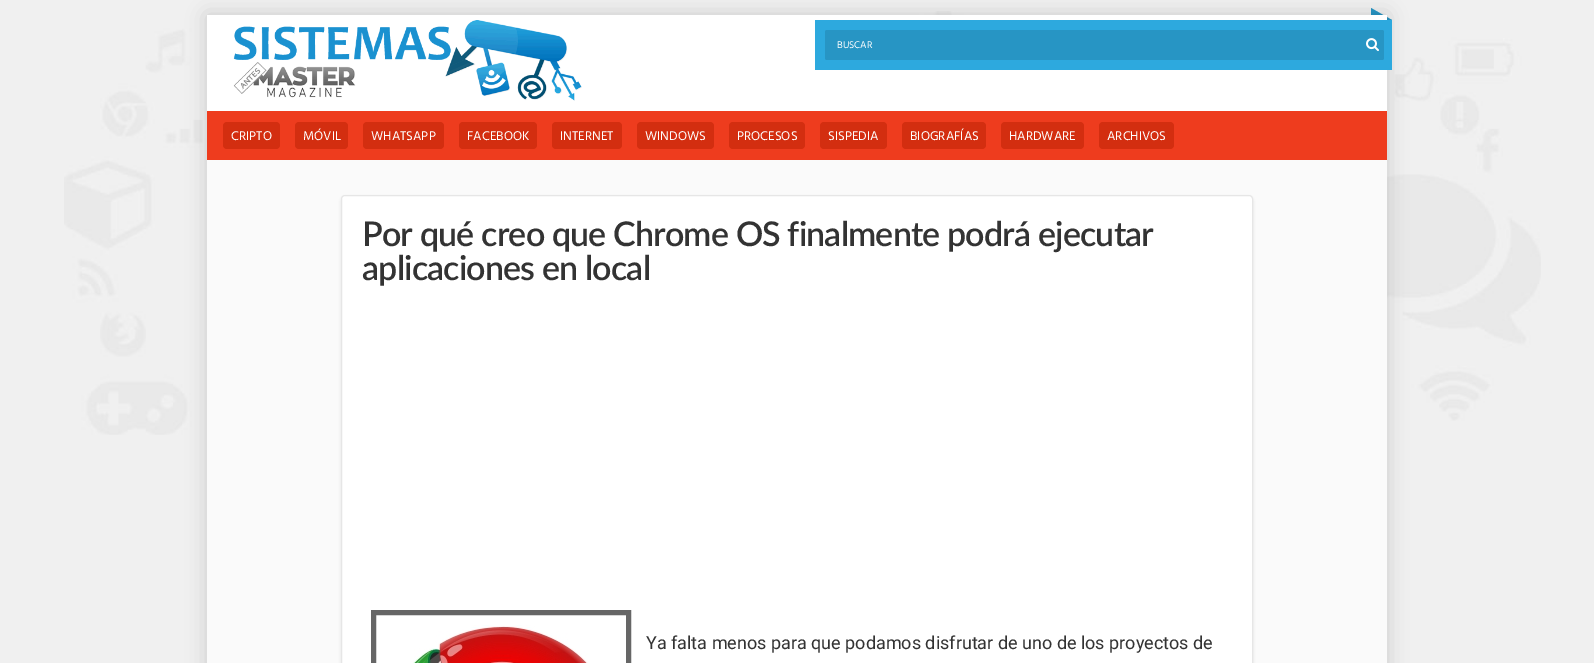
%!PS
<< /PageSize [1594 663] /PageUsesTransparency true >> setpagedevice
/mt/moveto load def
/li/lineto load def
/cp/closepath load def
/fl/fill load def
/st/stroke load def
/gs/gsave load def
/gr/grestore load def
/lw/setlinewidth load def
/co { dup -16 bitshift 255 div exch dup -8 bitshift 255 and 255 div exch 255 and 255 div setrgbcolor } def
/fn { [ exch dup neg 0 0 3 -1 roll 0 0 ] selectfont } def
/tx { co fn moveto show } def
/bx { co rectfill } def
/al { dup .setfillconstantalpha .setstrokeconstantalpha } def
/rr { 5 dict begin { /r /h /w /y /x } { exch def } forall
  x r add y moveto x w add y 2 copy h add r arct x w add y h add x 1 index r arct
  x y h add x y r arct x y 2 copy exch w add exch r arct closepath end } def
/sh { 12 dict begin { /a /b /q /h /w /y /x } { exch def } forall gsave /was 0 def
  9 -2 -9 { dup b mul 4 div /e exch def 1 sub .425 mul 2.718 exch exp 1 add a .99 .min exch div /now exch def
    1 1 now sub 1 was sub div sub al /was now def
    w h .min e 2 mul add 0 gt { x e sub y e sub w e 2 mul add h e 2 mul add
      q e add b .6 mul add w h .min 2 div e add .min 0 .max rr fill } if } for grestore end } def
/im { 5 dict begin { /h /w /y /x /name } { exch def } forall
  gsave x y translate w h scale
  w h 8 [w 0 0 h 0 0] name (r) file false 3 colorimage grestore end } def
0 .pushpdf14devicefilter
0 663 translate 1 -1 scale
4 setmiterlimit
0 0 1594 663 16#F0F0F0 bx
(media/1.raw) 64 11 1477 424 im
16#2795C4 co
1371 20 mt 1371 8 li 1392 20 li cp fl
16#000000 co
207 15 1180 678 0 10 .15 sh
207 160 1180 503 16#FAFAFA bx
207 15 1180 96 16#FFFFFF bx
(media/2.raw) 233 20 349 81 im
815 20 577 50 16#2DA9DE bx
16#2795C4 co
825 30 559 30 2 rr fl
(media/3.raw) 1366 38 13 14 im
207 111 1180 49 16#EE3C1E bx
16#D32E10 co
223 122 57 27 4 rr fl
295 122 53 27 4 rr fl
363 122 81 27 4 rr fl
459 122 78 27 4 rr fl
552 122 70 27 4 rr fl
637 122 77 27 4 rr fl
729 122 76 27 4 rr fl
820 122 67 27 4 rr fl
902 122 84 27 4 rr fl
1001 122 83 27 4 rr fl
1099 122 75 27 4 rr fl
16#E5E5E5 co
341 197 912 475 4 1.5 1 sh
16#FFFFFF co
341.5 195.5 911 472 3.5 rr gs fl gr
16#E6E6E6 co
st
16#666666 co
5 lw
373.5 612.5 255 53 rectstroke
(media/4.raw) 413 625 175 38 im
(BUSCAR) 837 48 /Hind-Regular 10 16#FFFFFF tx
(CRIPTO) 231 140 /Hind-Regular 13 16#FFFFFF tx
(MÓVIL) 303 140 /Hind-Regular 13 16#FFFFFF tx
(WHATSAPP) 371 140 /Hind-Regular 13 16#FFFFFF tx
(FACEBOOK) 467 140 /Hind-Regular 13 16#FFFFFF tx
(INTERNET) 560 140 /Hind-Regular 13 16#FFFFFF tx
(WINDOWS) 645 140 /Hind-Regular 13 16#FFFFFF tx
(PROCESOS) 737 140 /Hind-Regular 13 16#FFFFFF tx
(SISPEDIA) 828 140 /Hind-Regular 13 16#FFFFFF tx
(BIOGRAFÍAS) 910 140 /Hind-Regular 13 16#FFFFFF tx
(HARDWARE) 1009 140 /Hind-Regular 13 16#FFFFFF tx
(ARCHIVOS) 1107 140 /Hind-Regular 13 16#FFFFFF tx
/Lato-SemiBold 34 fn
16#333333 co
362 246 mt -.85 0 (Por qué creo que Chrome OS finalmente podrá ejecutar) ashow
362 280 mt -.85 0 (aplicaciones en local) ashow
(Ya falta menos para que podamos disfrutar de uno de los proyectos de) 646 649 /Roboto-Regular 18 16#333333 tx
.poppdf14devicefilter showpage
